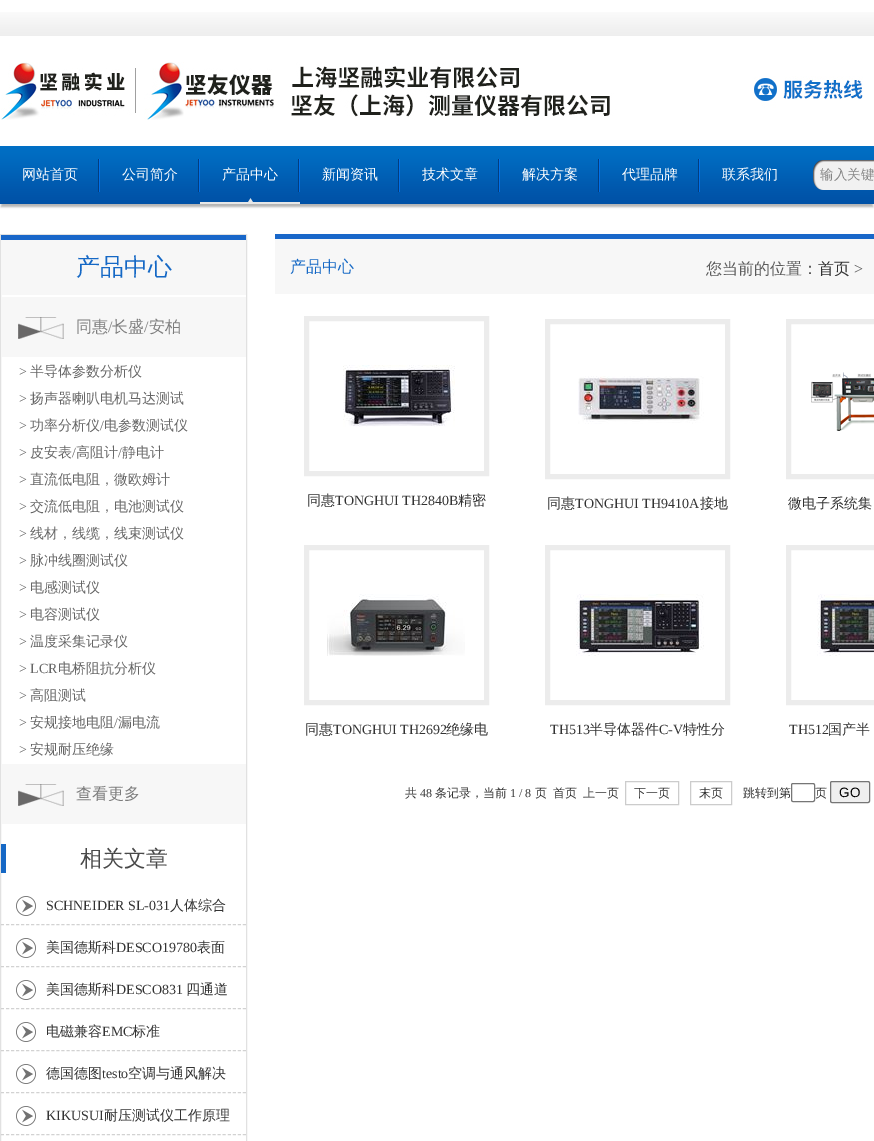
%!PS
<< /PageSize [874 1141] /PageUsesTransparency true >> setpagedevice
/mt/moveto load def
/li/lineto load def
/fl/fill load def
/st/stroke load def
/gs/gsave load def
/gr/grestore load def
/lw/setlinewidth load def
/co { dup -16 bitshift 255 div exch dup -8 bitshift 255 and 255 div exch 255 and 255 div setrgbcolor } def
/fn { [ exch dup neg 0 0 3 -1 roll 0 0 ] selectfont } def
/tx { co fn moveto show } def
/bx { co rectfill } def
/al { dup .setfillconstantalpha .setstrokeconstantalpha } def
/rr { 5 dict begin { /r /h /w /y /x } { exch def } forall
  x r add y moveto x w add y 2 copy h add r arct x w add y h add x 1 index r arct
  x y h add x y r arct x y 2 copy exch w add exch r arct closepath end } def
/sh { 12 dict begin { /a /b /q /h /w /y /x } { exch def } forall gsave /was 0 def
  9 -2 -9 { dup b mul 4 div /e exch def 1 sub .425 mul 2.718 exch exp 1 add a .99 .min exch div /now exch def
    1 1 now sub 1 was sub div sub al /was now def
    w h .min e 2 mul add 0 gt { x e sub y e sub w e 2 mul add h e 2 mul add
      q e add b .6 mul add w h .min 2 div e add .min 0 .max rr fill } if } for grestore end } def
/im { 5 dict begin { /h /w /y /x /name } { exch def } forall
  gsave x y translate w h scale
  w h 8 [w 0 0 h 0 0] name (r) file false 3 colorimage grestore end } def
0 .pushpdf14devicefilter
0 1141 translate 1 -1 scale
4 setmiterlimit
0 0 874 1141 16#FFFFFF bx
(media/1.raw) 0 12 874 24 im
(media/2.raw) 1 62 862 58 im
16#000000 co
1 151 872 56 0 1 .3 sh
(media/3.raw) 0 146 874 58 im
(media/4.raw) 98 159 2 33 im
(media/4.raw) 198 159 2 33 im
(media/4.raw) 298 159 2 33 im
(media/5.raw) 200 198 100 6 im
(media/4.raw) 398 159 2 33 im
(media/4.raw) 498 159 2 33 im
(media/4.raw) 598 159 2 33 im
(media/4.raw) 698 159 2 33 im
(media/6.raw) 813 160 61 30 im
16#E1E1E1 co
.5 234.5 246 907 rectstroke
1 240 245 55 16#F7F7F7 bx
1 235 245 5 16#1967C9 bx
1 297 245 60 16#F7F7F7 bx
(media/7.raw) 18 317 46 22 im
1 764 245 60 16#F7F7F7 bx
(media/7.raw) 18 784 46 22 im
1 844 5 29 16#1668C5 bx
(media/8.raw) 16 896 20 20 im
16#D2D2D2 co
[3 2.04] 0 setdash
1 924.5 mt 246 924.5 li st
(media/8.raw) 16 938 20 20 im
1 966.5 mt 246 966.5 li st
(media/8.raw) 16 980 20 20 im
1 1008.5 mt 246 1008.5 li st
(media/8.raw) 16 1022 20 20 im
1 1050.5 mt 246 1050.5 li st
(media/8.raw) 16 1064 20 20 im
1 1092.5 mt 246 1092.5 li st
(media/8.raw) 16 1106 20 20 im
1 1134.5 mt 246 1134.5 li st
275 239 599 55 16#F7F7F7 bx
275 234 599 5 16#1967C9 bx
16#ECECEC co
5 lw
[] 0 setdash
306.5 318.5 180 155 rectstroke
(media/9.raw) 343 365 112 62 im
547.5 321.5 180 155 rectstroke
(media/10.raw) 578 376 126 48 im
788.5 321.5 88 155 rectstroke
(media/11.raw) 811 372 63 59 im
306.5 547.5 180 155 rectstroke
(media/12.raw) 327 594 138 62 im
547.5 547.5 180 155 rectstroke
(media/13.raw) 576 594 128 62 im
788.5 547.5 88 155 rectstroke
(media/14.raw) 817 594 57 62 im
16#CCCCCC co
1 lw
625.5 781.5 53 23 rectstroke
690.5 781.5 41 23 rectstroke
16#767676 co
791.5 783.5 23 18 1.5 rr st
16#EFEFEF co
830.5 781.5 39 21 1.5 rr gs fl gr
16#767676 co
st
(网站首页) 22 179 /WenQuanYiZenHei-Medium 14 16#FFFFFF tx
(公司简介) 122 179 /WenQuanYiZenHei-Medium 14 16#FFFFFF tx
(产品中心) 222 179 /WenQuanYiZenHei-Medium 14 16#FFFFFF tx
(新闻资讯) 322 179 /WenQuanYiZenHei-Medium 14 16#FFFFFF tx
(技术文章) 422 179 /WenQuanYiZenHei-Medium 14 16#FFFFFF tx
(解决方案) 522 179 /WenQuanYiZenHei-Medium 14 16#FFFFFF tx
(代理品牌) 622 179 /WenQuanYiZenHei-Medium 14 16#FFFFFF tx
(联系我们) 722 179 /WenQuanYiZenHei-Medium 14 16#FFFFFF tx
(输入关键) 820 179 /WenQuanYiZenHei-Medium 13.5 16#858585 tx
(产品中心) 76 275 /WenQuanYiZenHei-Medium 24 16#1568C5 tx
(同惠) 76 332 /WenQuanYiZenHei-Medium 16 16#7D7D7D tx
(/) 108 332 /LiberationSerif-Regular 16 16#7D7D7D tx
(长盛) 112 332 /WenQuanYiZenHei-Medium 16 16#7D7D7D tx
(/) 144 332 /LiberationSerif-Regular 16 16#7D7D7D tx
(安柏) 149 332 /WenQuanYiZenHei-Medium 16 16#7D7D7D tx
(>) 19 376 /LiberationSerif-Regular 14 16#666666 tx
(半导体参数分析仪) 30 376 /WenQuanYiZenHei-Medium 14 16#666666 tx
(>) 19 403 /LiberationSerif-Regular 14 16#666666 tx
(扬声器喇叭电机马达测试) 30 403 /WenQuanYiZenHei-Medium 14 16#666666 tx
(>) 19 430 /LiberationSerif-Regular 14 16#666666 tx
(功率分析仪) 30 430 /WenQuanYiZenHei-Medium 14 16#666666 tx
(/) 100 430 /LiberationSerif-Regular 14 16#666666 tx
(电参数测试仪) 104 430 /WenQuanYiZenHei-Medium 14 16#666666 tx
(>) 19 457 /LiberationSerif-Regular 14 16#666666 tx
(皮安表) 30 457 /WenQuanYiZenHei-Medium 14 16#666666 tx
(/) 72 457 /LiberationSerif-Regular 14 16#666666 tx
(高阻计) 76 457 /WenQuanYiZenHei-Medium 14 16#666666 tx
(/) 118 457 /LiberationSerif-Regular 14 16#666666 tx
(静电计) 122 457 /WenQuanYiZenHei-Medium 14 16#666666 tx
(>) 19 484 /LiberationSerif-Regular 14 16#666666 tx
(直流低电阻，微欧姆计) 30 484 /WenQuanYiZenHei-Medium 14 16#666666 tx
(>) 19 511 /LiberationSerif-Regular 14 16#666666 tx
(交流低电阻，电池测试仪) 30 511 /WenQuanYiZenHei-Medium 14 16#666666 tx
(>) 19 538 /LiberationSerif-Regular 14 16#666666 tx
(线材，线缆，线束测试仪) 30 538 /WenQuanYiZenHei-Medium 14 16#666666 tx
(>) 19 565 /LiberationSerif-Regular 14 16#666666 tx
(脉冲线圈测试仪) 30 565 /WenQuanYiZenHei-Medium 14 16#666666 tx
(>) 19 592 /LiberationSerif-Regular 14 16#666666 tx
(电感测试仪) 30 592 /WenQuanYiZenHei-Medium 14 16#666666 tx
(>) 19 619 /LiberationSerif-Regular 14 16#666666 tx
(电容测试仪) 30 619 /WenQuanYiZenHei-Medium 14 16#666666 tx
(>) 19 646 /LiberationSerif-Regular 14 16#666666 tx
(温度采集记录仪) 30 646 /WenQuanYiZenHei-Medium 14 16#666666 tx
(> LCR) 19 673 /LiberationSerif-Regular 14 16#666666 tx
(电桥阻抗分析仪) 58 673 /WenQuanYiZenHei-Medium 14 16#666666 tx
(>) 19 700 /LiberationSerif-Regular 14 16#666666 tx
(高阻测试) 30 700 /WenQuanYiZenHei-Medium 14 16#666666 tx
(>) 19 727 /LiberationSerif-Regular 14 16#666666 tx
(安规接地电阻) 30 727 /WenQuanYiZenHei-Medium 14 16#666666 tx
(/) 114 727 /LiberationSerif-Regular 14 16#666666 tx
(漏电流) 118 727 /WenQuanYiZenHei-Medium 14 16#666666 tx
(>) 19 754 /LiberationSerif-Regular 14 16#666666 tx
(安规耐压绝缘) 30 754 /WenQuanYiZenHei-Medium 14 16#666666 tx
(查看更多) 76 799 /WenQuanYiZenHei-Medium 16 16#7D7D7D tx
(相关文章) 80 866 /WenQuanYiZenHei-Medium 22 16#494949 tx
(SCHNEIDER SL-031) 46 910 /LiberationSerif-Regular 14 16#333333 tx
(人体综合) 170 910 /WenQuanYiZenHei-Medium 14 16#333333 tx
(美国德斯科) 46 952 /WenQuanYiZenHei-Medium 14 16#333333 tx
(DESCO19780) 116 952 /LiberationSerif-Regular 14 16#333333 tx
(表面) 197 952 /WenQuanYiZenHei-Medium 14 16#333333 tx
(美国德斯科) 46 994 /WenQuanYiZenHei-Medium 14 16#333333 tx
(DESCO831) 116 994 /LiberationSerif-Regular 14 16#333333 tx
(四通道) 186 994 /WenQuanYiZenHei-Medium 14 16#333333 tx
(电磁兼容) 46 1036 /WenQuanYiZenHei-Medium 14 16#333333 tx
(EMC) 102 1036 /LiberationSerif-Regular 14 16#333333 tx
(标准) 132 1036 /WenQuanYiZenHei-Medium 14 16#333333 tx
(德国德图) 46 1078 /WenQuanYiZenHei-Medium 14 16#333333 tx
(testo) 102 1078 /LiberationSerif-Regular 14 16#333333 tx
(空调与通风解决) 128 1078 /WenQuanYiZenHei-Medium 14 16#333333 tx
(KIKUSUI) 46 1120 /LiberationSerif-Regular 14 16#333333 tx
(耐压测试仪工作原理) 104 1120 /WenQuanYiZenHei-Medium 14 16#333333 tx
(产品中心) 290 272 /WenQuanYiZenHei-Medium 16 16#1568C5 tx
(您当前的位置：) 706 274 /WenQuanYiZenHei-Medium 16 16#5C5C5C tx
(首页) 818 274 /WenQuanYiZenHei-Medium 16 16#333333 tx
(>) 854 274 /LiberationSerif-Regular 16 16#5C5C5C tx
(同惠) 307 505 /WenQuanYiZenHei-Medium 14 16#333333 tx
(TONGHUI TH2840B) 335 505 /LiberationSerif-Regular 14 16#333333 tx
(精密) 458 505 /WenQuanYiZenHei-Medium 14 16#333333 tx
(同惠) 547 508 /WenQuanYiZenHei-Medium 14 16#333333 tx
(TONGHUI TH9410A) 575 508 /LiberationSerif-Regular 14 16#333333 tx
(接地) 700 508 /WenQuanYiZenHei-Medium 14 16#333333 tx
(微电子系统集) 788 508 /WenQuanYiZenHei-Medium 14 16#333333 tx
(同惠) 305 734 /WenQuanYiZenHei-Medium 14 16#333333 tx
(TONGHUI TH2692) 333 734 /LiberationSerif-Regular 14 16#333333 tx
(绝缘电) 446 734 /WenQuanYiZenHei-Medium 14 16#333333 tx
(TH513) 550 734 /LiberationSerif-Regular 14 16#333333 tx
(半导体器件) 589 734 /WenQuanYiZenHei-Medium 14 16#333333 tx
(C-V) 659 734 /LiberationSerif-Regular 14 16#333333 tx
(特性分) 683 734 /WenQuanYiZenHei-Medium 14 16#333333 tx
(TH512) 789 734 /LiberationSerif-Regular 14 16#333333 tx
(国产半) 828 734 /WenQuanYiZenHei-Medium 14 16#333333 tx
(共) 405 797 /WenQuanYiZenHei-Medium 12 16#333333 tx
(48) 420 797 /LiberationSerif-Regular 12 16#333333 tx
(条记录，当前) 435 797 /WenQuanYiZenHei-Medium 12 16#333333 tx
(1 / 8) 510 797 /LiberationSerif-Regular 12 16#333333 tx
(页) 535 797 /WenQuanYiZenHei-Medium 12 16#333333 tx
(首页) 553 797 /WenQuanYiZenHei-Medium 12 16#333333 tx
(上一页) 583 797 /WenQuanYiZenHei-Medium 12 16#333333 tx
(下一页) 634 797 /WenQuanYiZenHei-Medium 12 16#333333 tx
(末页) 699 797 /WenQuanYiZenHei-Medium 12 16#333333 tx
(跳转到第) 743 797 /WenQuanYiZenHei-Medium 12 16#333333 tx
(页) 815 797 /WenQuanYiZenHei-Medium 12 16#333333 tx
(GO) 839 797 /LiberationSans-Regular 13.5 16#000000 tx
.poppdf14devicefilter showpage
